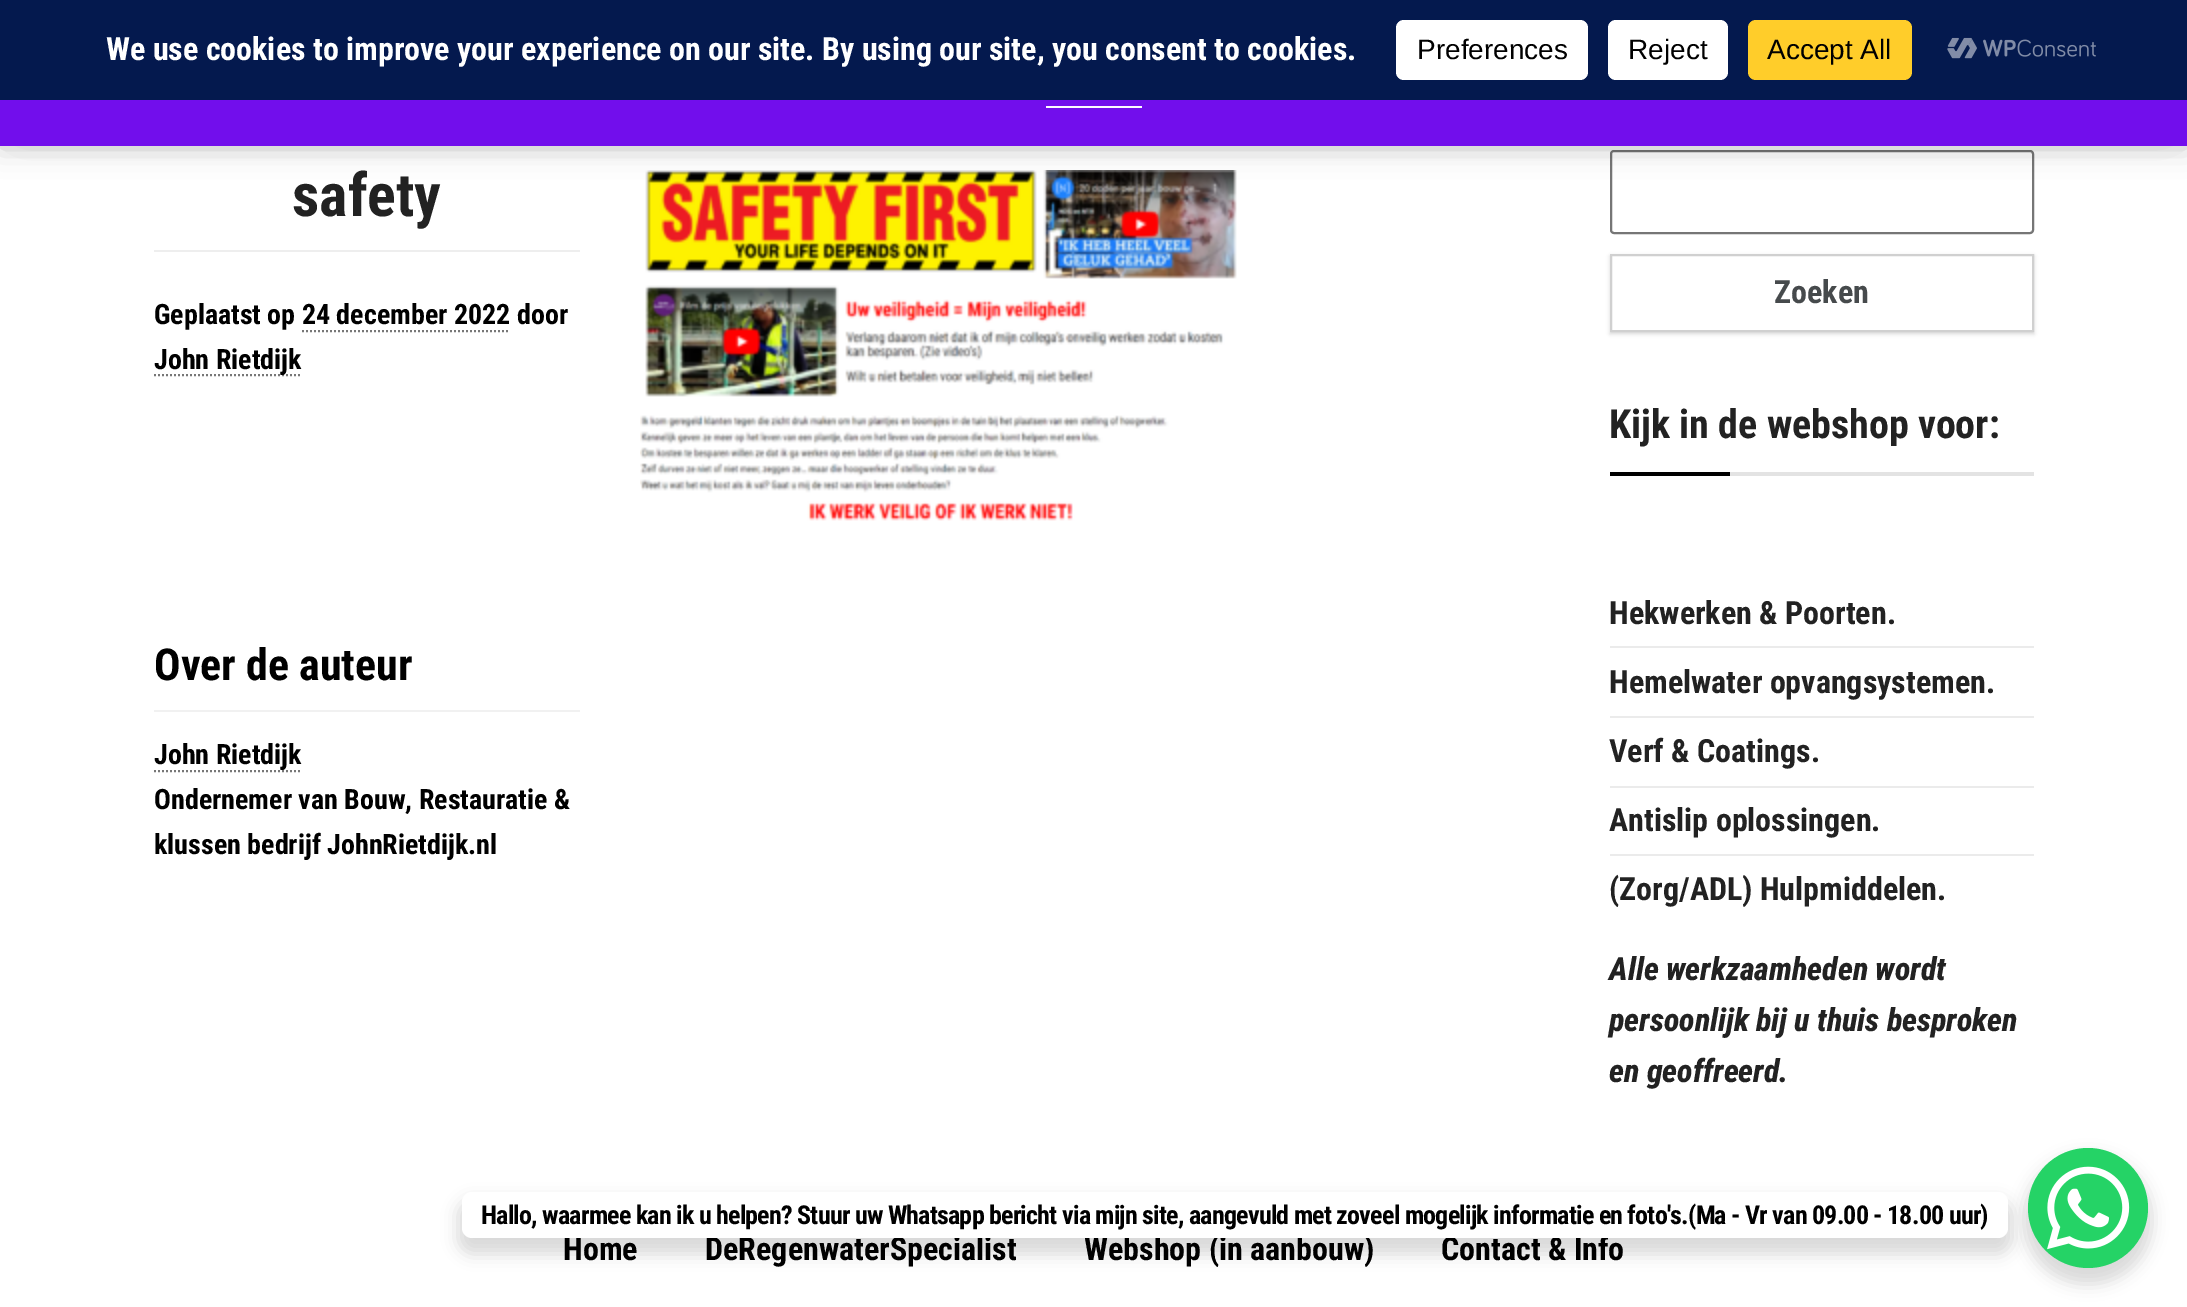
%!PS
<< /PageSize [2187 1307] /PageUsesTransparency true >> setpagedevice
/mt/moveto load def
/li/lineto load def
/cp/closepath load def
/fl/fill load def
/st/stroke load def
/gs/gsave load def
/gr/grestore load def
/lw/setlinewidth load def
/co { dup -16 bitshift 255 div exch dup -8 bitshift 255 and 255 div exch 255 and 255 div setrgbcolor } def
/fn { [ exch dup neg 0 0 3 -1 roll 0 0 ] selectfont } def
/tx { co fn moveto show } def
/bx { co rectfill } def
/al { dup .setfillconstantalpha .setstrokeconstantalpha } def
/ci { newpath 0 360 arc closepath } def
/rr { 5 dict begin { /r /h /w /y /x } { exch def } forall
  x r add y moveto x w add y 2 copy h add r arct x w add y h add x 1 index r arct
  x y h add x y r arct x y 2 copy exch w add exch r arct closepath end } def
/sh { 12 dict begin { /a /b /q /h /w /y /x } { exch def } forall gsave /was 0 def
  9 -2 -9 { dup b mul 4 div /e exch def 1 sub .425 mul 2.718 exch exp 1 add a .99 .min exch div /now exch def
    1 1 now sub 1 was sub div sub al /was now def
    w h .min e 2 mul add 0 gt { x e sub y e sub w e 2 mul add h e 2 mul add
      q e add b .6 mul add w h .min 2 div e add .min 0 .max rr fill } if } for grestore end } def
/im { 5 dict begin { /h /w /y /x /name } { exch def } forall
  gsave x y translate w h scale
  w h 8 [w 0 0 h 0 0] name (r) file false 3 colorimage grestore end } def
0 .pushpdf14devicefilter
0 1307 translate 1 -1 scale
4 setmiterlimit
0 0 2187 1307 16#FFFFFF bx
(media/2.raw) 640 170 598 351 im
16#767676 co
2 lw
1611 151 422 82 3 rr st
16#000000 co
24 44 2140 72 0 20 .42 sh
0 2 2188 146 0 14 .2 sh
0 100 2187 46 16#720EEC bx
1046 106 96 2 16#FCFBFE bx
0 0 2187 100 16#04194E bx
16#FFFFFF co
1396 20 192 60 8 rr fl
1608 20 120 60 8 rr fl
16#FFCD2A co
1748 20 164 60 8 rr fl
(media/1.raw) 1947 37 149 22 im
154 250 426 2 16#EEEEEE bx
16#777777 co
[2 2] 0 setdash
302 331 mt 510 331 li st
154 375 mt 302 375 li st
154 710 426 2 16#F1F1F1 bx
16#777777 co
154 771 mt 302 771 li st
gs
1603 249 mt 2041 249 li 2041 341 li 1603 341 li cp 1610 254 mt 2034 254 li 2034 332 li 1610 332 li cp eoclip newpath
16#000000 co
1610 256 424 78 0 2 .15 sh
gr
16#D0D0D0 co
[] 0 setdash
1611 255 422 76 rectstroke
1730 472 304 4 16#E3E3E3 bx
1610 472 120 4 16#000000 bx
1610 646 424 2 16#EBEBEB bx
1610 716 424 2 16#EBEBEB bx
1610 786 424 2 16#EBEBEB bx
1610 854 424 2 16#EBEBEB bx
16#000000 co
2024 1156 128 128 64 8 .15 sh
16#25D366 co
2088 1208 60 ci fl
16#000000 co
458 1200 1554 54 14 8 .15 sh
(media/3.raw) 2047 1166 83 84 im
(We use cookies to improve your experience on our site. By using our site, you consent to cookies.) 106 60 /RobotoCondensed-Bold 32 16#FFFFFF tx
(Preferences) 1417 59 /LiberationSans-Regular 28 16#000000 tx
(Reject) 1628 59 /LiberationSans-Regular 28 16#000000 tx
(Accept All) 1767 59 /LiberationSans-Regular 28 16#000000 tx
(safety) 292 216 /RobotoCondensed-Bold 60 16#222222 tx
(Geplaatst op 24 december 2022 door) 154 324 /RobotoCondensed-Bold 28 16#000000 tx
(John Rietdijk) 154 369 /RobotoCondensed-Bold 28 16#000000 tx
(Over de auteur) 154 680 /RobotoCondensed-Bold 44 16#000000 tx
(John Rietdijk) 154 764 /RobotoCondensed-Bold 28 16#000000 tx
(Ondernemer van Bouw, Restauratie &) 154 809 /RobotoCondensed-Bold 28 16#000000 tx
(klussen bedrijf JohnRietdijk.nl) 154 854 /RobotoCondensed-Bold 28 16#000000 tx
(Zoeken) 1774 303 /RobotoCondensed-Bold 32 16#464A4C tx
(Kijk in de webshop voor:) 1609 438 /RobotoCondensed-Bold 40 16#222222 tx
(Hekwerken & Poorten.) 1609 624 /RobotoCondensed-Bold 32 16#222222 tx
(Hemelwater opvangsystemen.) 1609 693 /RobotoCondensed-Bold 32 16#222222 tx
(Verf & Coatings.) 1609 762 /RobotoCondensed-Bold 32 16#222222 tx
(Antislip oplossingen.) 1609 831 /RobotoCondensed-Bold 32 16#222222 tx
(\(Zorg/ADL\) Hulpmiddelen.) 1609 900 /RobotoCondensed-Bold 32 16#222222 tx
(Alle werkzaamheden wordt) 1609 980 /RobotoCondensed-ExtraBoldItalic 32 16#222222 tx
(persoonlijk bij u thuis besproken) 1609 1031 /RobotoCondensed-ExtraBoldItalic 32 16#222222 tx
(en geoffreerd.) 1609 1082 /RobotoCondensed-ExtraBoldItalic 32 16#222222 tx
(Home) 563 1260 /RobotoCondensed-Bold 32 16#000000 tx
(DeRegenwaterSpecialist) 705 1260 /RobotoCondensed-Bold 32 16#000000 tx
(Webshop \(in aanbouw\)) 1084 1260 /RobotoCondensed-Bold 32 16#000000 tx
(Contact & Info) 1441 1260 /RobotoCondensed-Bold 32 16#000000 tx
16#FFFFFF co
462 1192 1546 46 10 rr fl
/RobotoCondensed-Bold 26 fn
16#000000 co
481 1224 mt -.78 0 (Hallo, waarmee kan ik u helpen? Stuur uw Whatsapp bericht via mijn site, aangevuld met zoveel mogelijk informatie en foto's.\(Ma - Vr van 09.00 - 18.00 uur\)) ashow
.poppdf14devicefilter showpage
